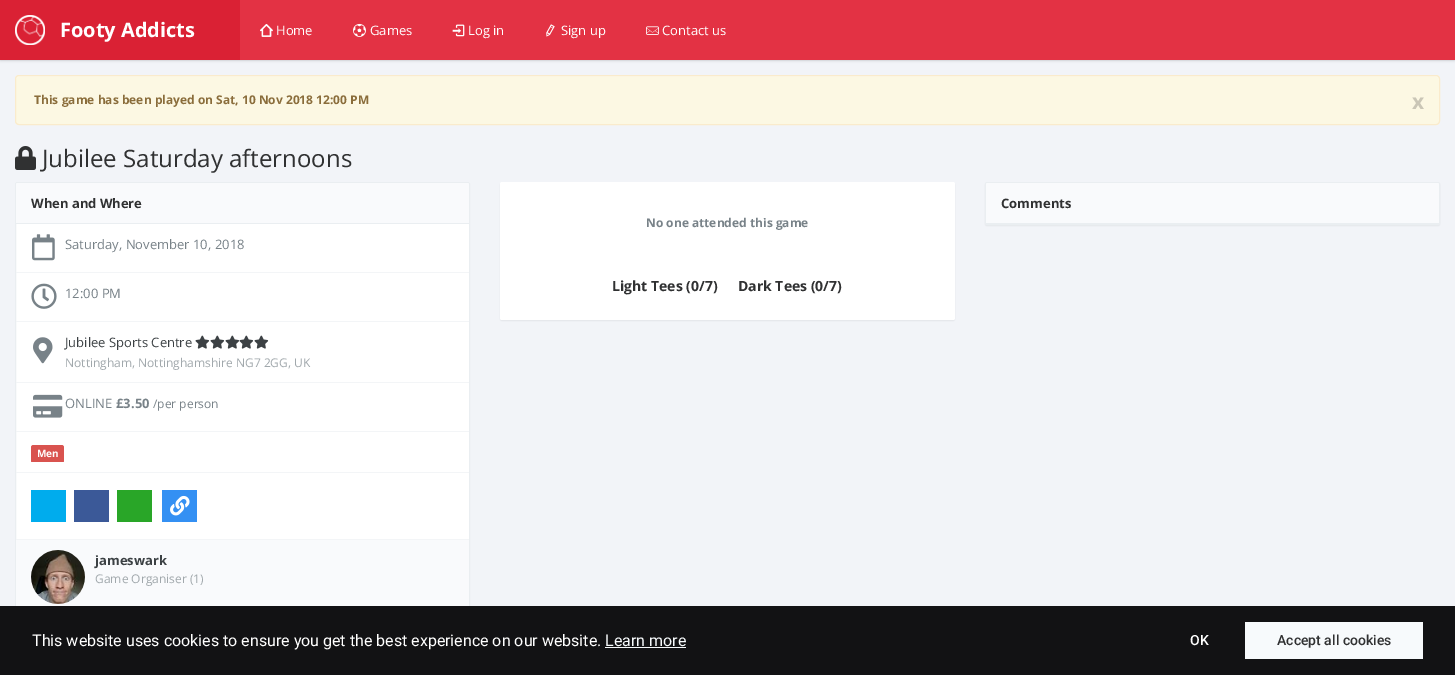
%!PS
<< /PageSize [1455 675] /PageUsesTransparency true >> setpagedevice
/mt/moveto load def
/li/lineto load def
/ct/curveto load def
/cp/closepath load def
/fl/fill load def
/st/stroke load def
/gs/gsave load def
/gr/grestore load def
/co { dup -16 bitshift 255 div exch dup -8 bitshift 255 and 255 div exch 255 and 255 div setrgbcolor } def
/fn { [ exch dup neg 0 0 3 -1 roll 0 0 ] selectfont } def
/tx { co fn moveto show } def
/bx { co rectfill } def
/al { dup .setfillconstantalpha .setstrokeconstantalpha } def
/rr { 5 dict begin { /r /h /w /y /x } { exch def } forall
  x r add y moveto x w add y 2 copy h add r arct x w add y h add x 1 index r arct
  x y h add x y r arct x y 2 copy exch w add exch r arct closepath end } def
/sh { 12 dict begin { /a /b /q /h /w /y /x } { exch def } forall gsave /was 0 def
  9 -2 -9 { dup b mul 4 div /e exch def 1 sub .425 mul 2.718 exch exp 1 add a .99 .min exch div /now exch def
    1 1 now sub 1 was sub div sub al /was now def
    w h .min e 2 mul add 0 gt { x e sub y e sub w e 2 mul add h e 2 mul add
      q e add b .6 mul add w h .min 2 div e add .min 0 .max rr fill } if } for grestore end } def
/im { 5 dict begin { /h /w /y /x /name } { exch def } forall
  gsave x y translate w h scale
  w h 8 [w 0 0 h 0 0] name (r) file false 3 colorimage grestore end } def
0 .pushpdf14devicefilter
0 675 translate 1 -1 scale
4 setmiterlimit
0 0 1455 675 16#F2F4F8 bx
0 60 1455 1 16#E6E8EC bx
16#000000 co
0 2 1455 60 0 1 .05 sh
240 0 1215 60 16#E33244 bx
0 0 240 60 16#DA2134 bx
(media/1.raw) 15 15 30 30 im
(media/2.raw) 260 24 13 13 im
(media/3.raw) 353 23 13 14 im
(media/4.raw) 452 24 13 13 im
(media/5.raw) 546 24 9 13 im
(media/6.raw) 646 26 13 9 im
16#FCF8E3 co
15 75 1425 50 4 rr fl
16#FDF9E9 co
19 77 mt 1436 77 li 1438 77 1439 78 1439 80 ct 1439 79 li 1439 77 1438 76 1436 76 ct 19 76 li 17 76 16 77 16 79 ct 16 80 li 16 78 17 77 19 77 ct cp fl
16#FAEBCC co
15.5 75.5 1424 49 3.5 rr st
(media/7.raw) 15 146 21 24 im
16#FFFFFF co
17 182 mt 468 182 li 469 182 470 183 470 184 ct 470 675 li 15 675 li 15 184 li 15 183 16 182 17 182 ct cp fl
16#EAEEF1 co
15.5 182.5 454 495 1.5 rr st
16#F9FAFC co
18 183 mt 467 183 li 468 183 469 184 469 185 ct 469 224 li 16 224 li 16 185 li 16 184 17 183 18 183 ct cp fl
16 223 453 1 16#EAEEF1 bx
16 272 453 1 16#F3F5F7 bx
(media/8.raw) 32 234 23 27 im
16 321 453 1 16#F3F5F7 bx
(media/9.raw) 31 283 26 26 im
16 382 453 1 16#F3F5F7 bx
(media/10.raw) 33 337 20 27 im
(media/11.raw) 195 335 15 14 im
(media/11.raw) 210 335 15 14 im
(media/11.raw) 225 335 15 14 im
(media/12.raw) 239 335 15 14 im
(media/11.raw) 254 335 15 14 im
16 431 453 1 16#F3F5F7 bx
(media/13.raw) 33 394 30 24 im
16 472 453 1 16#F3F5F7 bx
gs
31 442 423 20 rectclip
16#D9534F co
31 445 33 18 2.5 rr fl
gr
16 539 453 1 16#F3F5F7 bx
31 490 35 32 16#00ACED bx
74 490 35 32 16#3B5998 bx
117 490 35 32 16#29A628 bx
162 490 35 32 16#3490F3 bx
(media/14.raw) 170 495 20 21 im
16 540 453 66 16#F9FAFC bx
(media/15.raw) 31 550 54 54 im
16#000000 co
985 183 455 43 2 .5 .05 sh
16#FFFFFF co
985.5 182.5 454 42 1.5 rr gs fl gr
16#EAEEF1 co
st
16#F9FAFC co
988 183 mt 1437 183 li 1438 183 1439 184 1439 185 ct 1439 224 li 986 224 li 986 185 li 986 184 987 183 988 183 ct cp fl
986 223 453 1 16#EAEEF1 bx
16#000000 co
500 183 455 138 2 .5 .05 sh
16#FFFFFF co
500 182 455 138 2 rr fl
0 606 1455 69 16#121214 bx
605 647 81 1 16#F7FAFC bx
1245 622 178 37 16#F7FAFC bx
(Footy Addicts) 60 37 /OpenSans-Bold 20 16#FFFFFF tx
(Home) 276 35 /OpenSans-Regular 13 16#FFFFFF tx
(Games) 370 35 /OpenSans-Regular 13 16#FFFFFF tx
(Log in) 468 35 /OpenSans-Regular 13 16#FFFFFF tx
(Sign up) 561 35 /OpenSans-Regular 13 16#FFFFFF tx
(Contact us) 662 35 /OpenSans-Regular 13 16#FFFFFF tx
(This game has been played on Sat, 10 Nov 2018 12:00 PM) 34 104 /OpenSans-Bold 12 16#8A6D3B tx
(x) 1412 109 /OpenSans-Bold 21 16#CAC6B6 tx
(Jubilee Saturday afternoons) 42 167 /OpenSans-Regular 24 16#303132 tx
(When and Where) 31 208 /OpenSans-Bold 13 16#303132 tx
(Saturday, November 10, 2018) 65 249 /OpenSans-Regular 13 16#788288 tx
(12:00 PM) 65 298 /OpenSans-Regular 13 16#788288 tx
(Jubilee Sports Centre) 65 347 /OpenSans-Regular 13 16#3C4144 tx
(Nottingham, Nottinghamshire NG7 2GG, UK) 65 367 /OpenSans-Regular 12 16#A1A8AC tx
(ONLINE) 65 408 /OpenSans-Regular 13 16#788288 tx
(£3.50) 116 408 /OpenSans-Bold 13 16#788288 tx
(/per person) 153 408 /OpenSans-Regular 12 16#788288 tx
(Men) 37 457 /OpenSans-Bold 10 16#FFFFFF tx
(jameswark) 95 565 /OpenSans-Bold 13 16#3C4144 tx
(Game Organiser \(1\)) 95 583 /OpenSans-Regular 12 16#A1A8AC tx
(Comments) 1001 208 /OpenSans-Bold 13 16#303132 tx
(No one attended this game) 646 227 /OpenSans-Bold 12 16#788288 tx
(Light Tees \(0/7\)) 612 291 /OpenSans-Bold 14 16#303132 tx
(Dark Tees \(0/7\)) 738 291 /OpenSans-Bold 14 16#303132 tx
(This website uses cookies to ensure you get the best experience on our website.) 32 646 /Roboto-Regular 16 16#FFFFFF tx
(Learn more) 605 646 /Roboto-Regular 16 16#F7FAFC tx
(OK) 1190 645 /Roboto-Medium 14 16#FFFFFF tx
(Accept all cookies) 1277 645 /Roboto-Medium 14 16#303132 tx
.poppdf14devicefilter showpage
